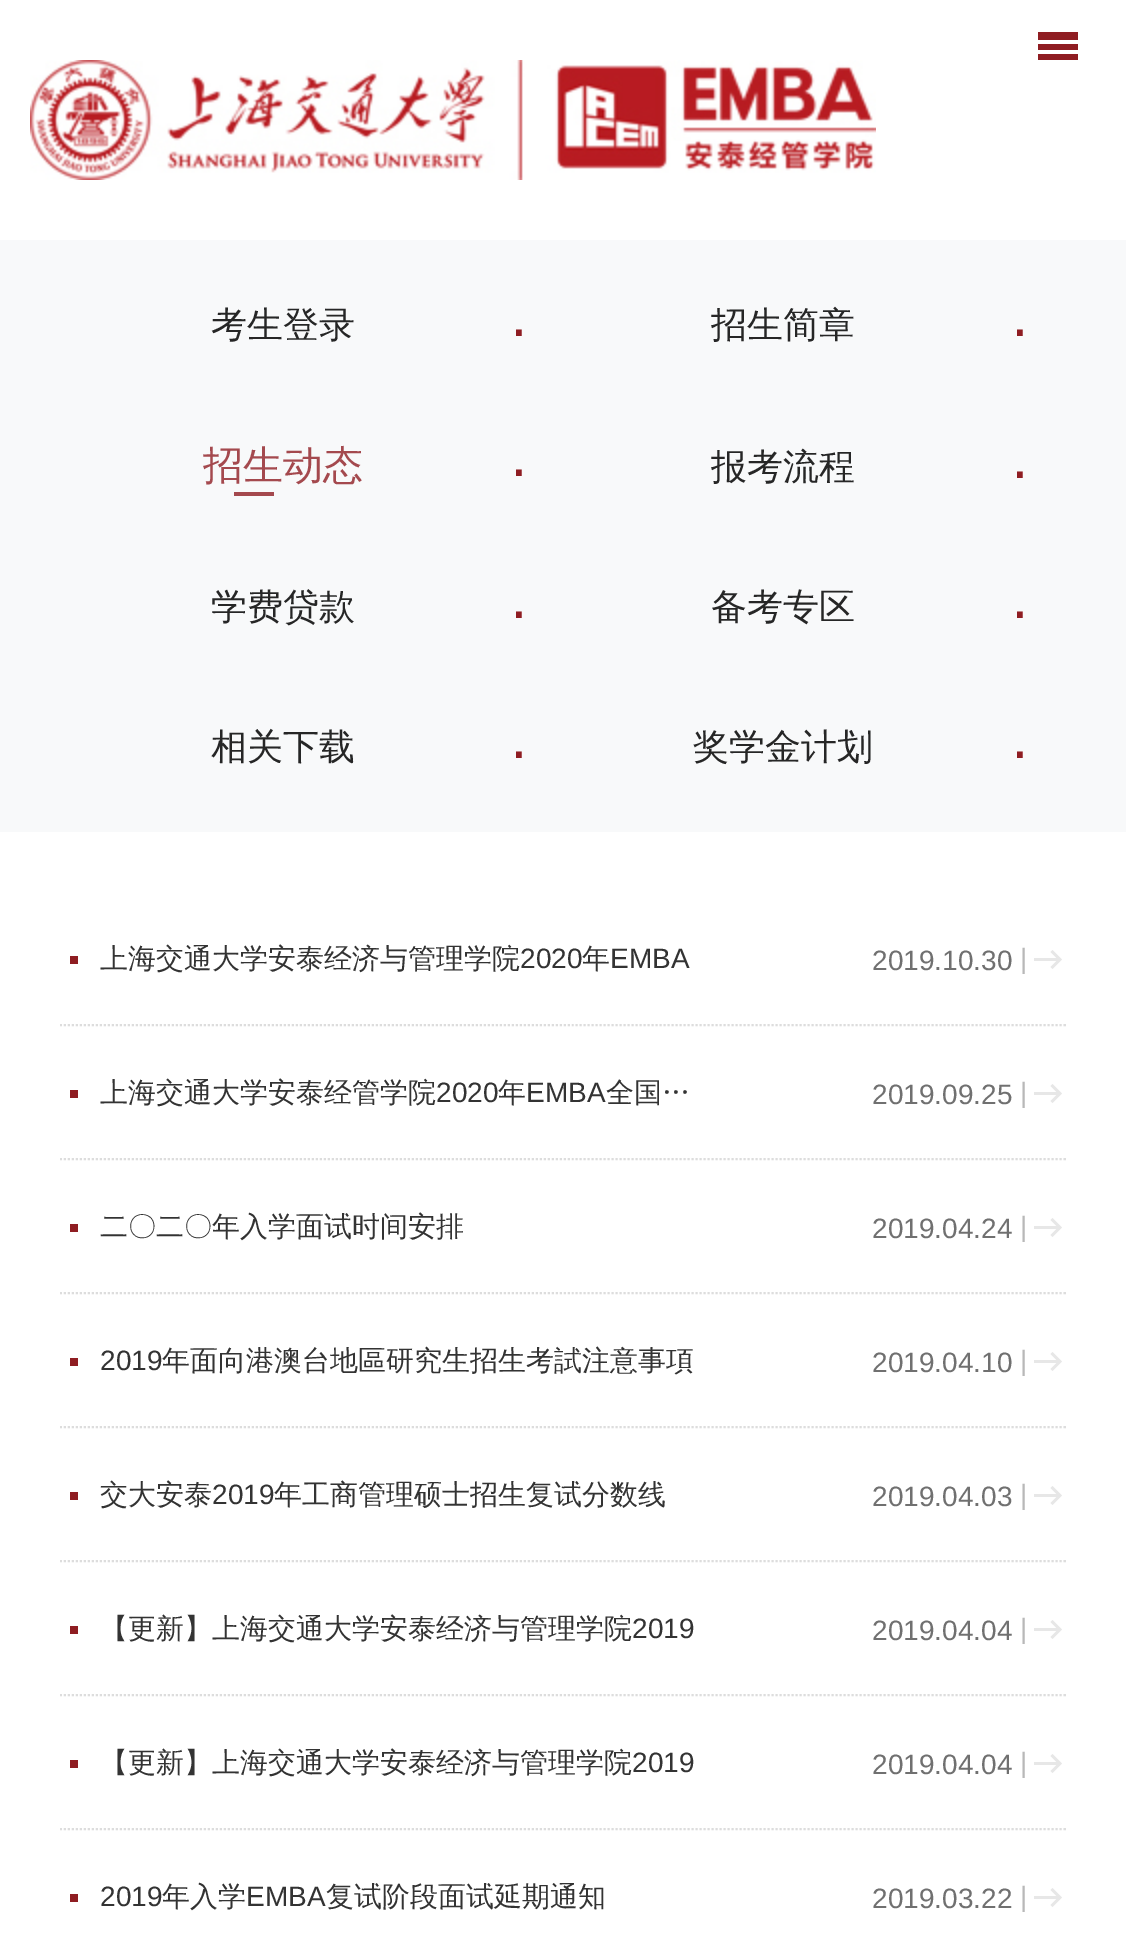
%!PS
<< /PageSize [1126 1935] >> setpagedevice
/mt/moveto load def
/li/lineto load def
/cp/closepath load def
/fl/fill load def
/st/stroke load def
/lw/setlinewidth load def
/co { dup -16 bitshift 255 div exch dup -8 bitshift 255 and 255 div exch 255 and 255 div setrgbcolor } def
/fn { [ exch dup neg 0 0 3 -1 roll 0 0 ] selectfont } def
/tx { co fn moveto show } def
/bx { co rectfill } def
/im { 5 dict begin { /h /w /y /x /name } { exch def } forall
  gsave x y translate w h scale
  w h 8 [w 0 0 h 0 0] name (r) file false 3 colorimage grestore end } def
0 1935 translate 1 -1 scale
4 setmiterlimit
0 0 1126 1935 16#FFFFFF bx
1038 54 40 6 16#8F1D22 bx
1038 44 40 6 16#8F1D22 bx
1038 32 40 8 16#8F1D22 bx
(media/1.raw) 30 60 846 120 im
0 240 1126 592 16#F8F9FA bx
234 492 40 4 16#A4494E bx
16#DDDDDD co
2 lw
[2 2] 0 setdash
60 1025 mt 1066 1025 li st
70 956 8 8 16#8F1D22 bx
16#E7E7E7 co
1052.5 950 mt 1050.5 952 li 1056.5 958 li 1034 958 li 1034 961 li 1056.5 961 li 1050.5 967 li 1052.5 969 li 1062 959.5 li cp fl
16#DDDDDD co
60 1159 mt 1066 1159 li st
70 1090 8 8 16#8F1D22 bx
16#E7E7E7 co
1052.5 1084 mt 1050.5 1086 li 1056.5 1092 li 1034 1092 li 1034 1095 li 1056.5 1095 li 1050.5 1101 li 1052.5 1103 li 1062 1093.5 li cp fl
16#DDDDDD co
60 1293 mt 1066 1293 li st
70 1224 8 8 16#8F1D22 bx
16#E7E7E7 co
1052.5 1218 mt 1050.5 1220 li 1056.5 1226 li 1034 1226 li 1034 1229 li 1056.5 1229 li 1050.5 1235 li 1052.5 1237 li 1062 1227.5 li cp fl
16#DDDDDD co
60 1427 mt 1066 1427 li st
70 1358 8 8 16#8F1D22 bx
16#E7E7E7 co
1052.5 1352 mt 1050.5 1354 li 1056.5 1360 li 1034 1360 li 1034 1363 li 1056.5 1363 li 1050.5 1369 li 1052.5 1371 li 1062 1361.5 li cp fl
16#DDDDDD co
60 1561 mt 1066 1561 li st
70 1492 8 8 16#8F1D22 bx
16#E7E7E7 co
1052.5 1486 mt 1050.5 1488 li 1056.5 1494 li 1034 1494 li 1034 1497 li 1056.5 1497 li 1050.5 1503 li 1052.5 1505 li 1062 1495.5 li cp fl
16#DDDDDD co
60 1695 mt 1066 1695 li st
70 1626 8 8 16#8F1D22 bx
16#E7E7E7 co
1052.5 1620 mt 1050.5 1622 li 1056.5 1628 li 1034 1628 li 1034 1631 li 1056.5 1631 li 1050.5 1637 li 1052.5 1639 li 1062 1629.5 li cp fl
16#DDDDDD co
60 1829 mt 1066 1829 li st
70 1760 8 8 16#8F1D22 bx
16#E7E7E7 co
1052.5 1754 mt 1050.5 1756 li 1056.5 1762 li 1034 1762 li 1034 1765 li 1056.5 1765 li 1050.5 1771 li 1052.5 1773 li 1062 1763.5 li cp fl
70 1894 8 8 16#8F1D22 bx
16#E7E7E7 co
1052.5 1888 mt 1050.5 1890 li 1056.5 1896 li 1034 1896 li 1034 1899 li 1056.5 1899 li 1050.5 1905 li 1052.5 1907 li 1062 1897.5 li cp fl
(考生登录) 211 337 /WenQuanYiZenHei-Medium 36 16#262626 tx
(·) 509 349 /LiberationSans-Regular 60 16#8F1D22 tx
(招生简章) 711 337 /WenQuanYiZenHei-Medium 36 16#262626 tx
(·) 1010 349 /LiberationSans-Regular 60 16#8F1D22 tx
(招生动态) 203 479 /WenQuanYiZenHei-Medium 40 16#A4494E tx
(·) 509 489 /LiberationSans-Regular 60 16#8F1D22 tx
(报考流程) 711 479 /WenQuanYiZenHei-Medium 36 16#262626 tx
(·) 1010 491 /LiberationSans-Regular 60 16#8F1D22 tx
(学费贷款) 211 619 /WenQuanYiZenHei-Medium 36 16#262626 tx
(·) 509 631 /LiberationSans-Regular 60 16#8F1D22 tx
(备考专区) 711 619 /WenQuanYiZenHei-Medium 36 16#262626 tx
(·) 1010 631 /LiberationSans-Regular 60 16#8F1D22 tx
(相关下载) 211 759 /WenQuanYiZenHei-Medium 36 16#262626 tx
(·) 509 771 /LiberationSans-Regular 60 16#8F1D22 tx
(奖学金计划) 693 759 /WenQuanYiZenHei-Medium 36 16#262626 tx
(·) 1010 771 /LiberationSans-Regular 60 16#8F1D22 tx
(上海交通大学安泰经济与管理学院) 100 968 /WenQuanYiZenHei-Medium 28 16#333333 tx
(2020) 520 968 /LiberationSans-Regular 28 16#333333 tx
(年) 582 968 /WenQuanYiZenHei-Medium 28 16#333333 tx
(EMBA) 610 968 /LiberationSans-Regular 28 16#333333 tx
(2019.10.30) 872 970 /LiberationSans-Regular 28 16#707070 tx
(|) 1020 968 /LiberationSans-Regular 28 16#B8B8B8 tx
(上海交通大学安泰经管学院) 100 1102 /WenQuanYiZenHei-Medium 28 16#333333 tx
(2020) 436 1102 /LiberationSans-Regular 28 16#333333 tx
(年) 498 1102 /WenQuanYiZenHei-Medium 28 16#333333 tx
(EMBA) 526 1102 /LiberationSans-Regular 28 16#333333 tx
(全国…) 606 1102 /WenQuanYiZenHei-Medium 28 16#333333 tx
(2019.09.25) 872 1104 /LiberationSans-Regular 28 16#707070 tx
(|) 1020 1102 /LiberationSans-Regular 28 16#B8B8B8 tx
(二〇二〇年入学面试时间安排) 100 1236 /WenQuanYiZenHei-Medium 28 16#333333 tx
(2019.04.24) 872 1238 /LiberationSans-Regular 28 16#707070 tx
(|) 1020 1236 /LiberationSans-Regular 28 16#B8B8B8 tx
(2019) 100 1370 /LiberationSans-Regular 28 16#333333 tx
(年面向港澳台地區研究生招生考試注意事項) 162 1370 /WenQuanYiZenHei-Medium 28 16#333333 tx
(2019.04.10) 872 1372 /LiberationSans-Regular 28 16#707070 tx
(|) 1020 1370 /LiberationSans-Regular 28 16#B8B8B8 tx
(交大安泰) 100 1504 /WenQuanYiZenHei-Medium 28 16#333333 tx
(2019) 212 1504 /LiberationSans-Regular 28 16#333333 tx
(年工商管理硕士招生复试分数线) 274 1504 /WenQuanYiZenHei-Medium 28 16#333333 tx
(2019.04.03) 872 1506 /LiberationSans-Regular 28 16#707070 tx
(|) 1020 1504 /LiberationSans-Regular 28 16#B8B8B8 tx
(【更新】上海交通大学安泰经济与管理学院) 100 1638 /WenQuanYiZenHei-Medium 28 16#333333 tx
(2019) 632 1638 /LiberationSans-Regular 28 16#333333 tx
(2019.04.04) 872 1640 /LiberationSans-Regular 28 16#707070 tx
(|) 1020 1638 /LiberationSans-Regular 28 16#B8B8B8 tx
(【更新】上海交通大学安泰经济与管理学院) 100 1772 /WenQuanYiZenHei-Medium 28 16#333333 tx
(2019) 632 1772 /LiberationSans-Regular 28 16#333333 tx
(2019.04.04) 872 1774 /LiberationSans-Regular 28 16#707070 tx
(|) 1020 1772 /LiberationSans-Regular 28 16#B8B8B8 tx
(2019) 100 1906 /LiberationSans-Regular 28 16#333333 tx
(年入学) 162 1906 /WenQuanYiZenHei-Medium 28 16#333333 tx
(EMBA) 246 1906 /LiberationSans-Regular 28 16#333333 tx
(复试阶段面试延期通知) 326 1906 /WenQuanYiZenHei-Medium 28 16#333333 tx
(2019.03.22) 872 1908 /LiberationSans-Regular 28 16#707070 tx
(|) 1020 1906 /LiberationSans-Regular 28 16#B8B8B8 tx
showpage
